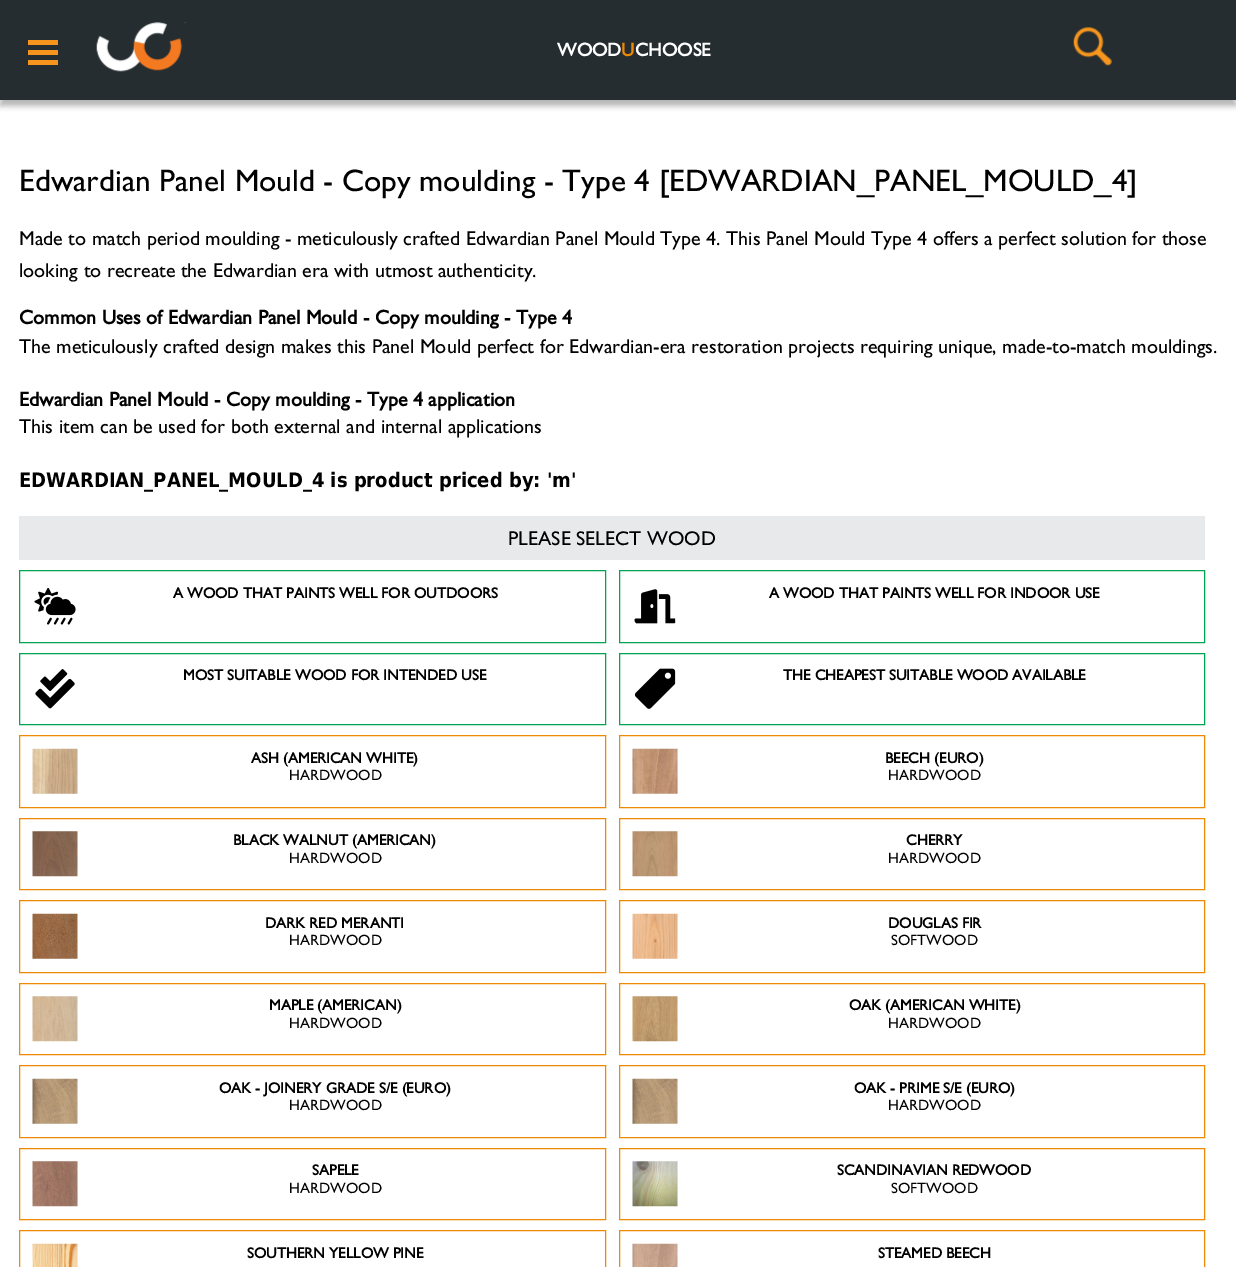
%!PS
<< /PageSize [1236 1267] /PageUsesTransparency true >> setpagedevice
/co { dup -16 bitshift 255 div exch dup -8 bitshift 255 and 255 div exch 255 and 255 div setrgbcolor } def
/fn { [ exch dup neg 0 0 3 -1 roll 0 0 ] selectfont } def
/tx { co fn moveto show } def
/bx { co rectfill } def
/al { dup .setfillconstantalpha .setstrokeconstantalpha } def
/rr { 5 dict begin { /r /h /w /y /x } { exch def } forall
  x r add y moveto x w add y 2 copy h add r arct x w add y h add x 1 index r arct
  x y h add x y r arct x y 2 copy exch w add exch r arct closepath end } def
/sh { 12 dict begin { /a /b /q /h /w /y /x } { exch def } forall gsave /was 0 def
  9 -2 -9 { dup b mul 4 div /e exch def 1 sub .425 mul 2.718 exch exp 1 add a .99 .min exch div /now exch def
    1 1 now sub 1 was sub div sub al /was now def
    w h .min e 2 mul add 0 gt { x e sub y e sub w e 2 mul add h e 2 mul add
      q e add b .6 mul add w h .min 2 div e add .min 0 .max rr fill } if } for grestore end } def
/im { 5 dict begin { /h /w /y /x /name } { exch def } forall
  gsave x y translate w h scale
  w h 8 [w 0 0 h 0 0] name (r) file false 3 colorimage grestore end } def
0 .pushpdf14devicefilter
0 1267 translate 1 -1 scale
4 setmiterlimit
0 0 1236 1267 16#FFFFFF bx
16#040404 co
0 6 1236 100 0 3 .3 sh
0 0 1236 100 16#262D31 bx
28 40 30 5 16#F7941E bx
28 50 30 5 16#F7941E bx
28 60 30 5 16#F7941E bx
(media/1.raw) 96 22 90 50 im
(media/2.raw) 1073 27 39 39 im
19 516 1186 44 16#E8E9EA bx
16#00A453 co
19.5 570.5 586 72 rectstroke
(media/3.raw) 34 588 42 37 im
619.5 570.5 585 72 rectstroke
(media/4.raw) 634 589 42 35 im
19.5 653.5 586 71 rectstroke
(media/5.raw) 35 669 40 40 im
619.5 653.5 585 71 rectstroke
(media/6.raw) 634 668 42 41 im
16#EF8903 co
19.5 735.5 586 72 rectstroke
(media/7.raw) 32 748 46 46 im
619.5 735.5 585 72 rectstroke
(media/8.raw) 632 748 46 46 im
19.5 818.5 586 71 rectstroke
(media/9.raw) 32 831 46 46 im
619.5 818.5 585 71 rectstroke
(media/10.raw) 632 831 46 46 im
19.5 900.5 586 72 rectstroke
(media/11.raw) 32 913 46 46 im
619.5 900.5 585 72 rectstroke
(media/12.raw) 632 913 46 46 im
19.5 983.5 586 71 rectstroke
(media/13.raw) 32 996 46 46 im
619.5 983.5 585 71 rectstroke
(media/14.raw) 632 996 46 46 im
19.5 1065.5 586 72 rectstroke
(media/15.raw) 32 1078 46 46 im
619.5 1065.5 585 72 rectstroke
(media/15.raw) 632 1078 46 46 im
19.5 1148.5 586 71 rectstroke
(media/16.raw) 32 1161 46 46 im
619.5 1148.5 585 71 rectstroke
(media/17.raw) 632 1161 46 46 im
19.5 1230.5 586 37 rectstroke
(media/18.raw) 32 1243 46 24 im
619.5 1230.5 585 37 rectstroke
(media/19.raw) 632 1243 46 24 im
(WOOD) 557 56 /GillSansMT-Bold 18.75 16#FFFFFF tx
(U) 621 56 /GillSansMT-Bold 18.75 16#EF8903 tx
(CHOOSE) 635 56 /GillSansMT-Bold 18.75 16#FFFFFF tx
(Edwardian Panel Mould - Copy moulding - Type 4 [EDWARDIAN_PANEL_MOULD_4]) 19 191 /GillSansMT-Regular 31.25 16#000000 tx
(Made to match period moulding - meticulously crafted Edwardian Panel Mould Type 4. This Panel Mould Type 4 offers a perfect solution for those) 19 245 /GillSansMT-Regular 20 16#000000 tx
(looking to recreate the Edwardian era with utmost authenticity.) 19 277 /GillSansMT-Regular 20 16#000000 tx
(Common Uses of Edwardian Panel Mould - Copy moulding - Type 4) 19 324 /GillSansMT-Bold 20 16#000000 tx
(The meticulously crafted design makes this Panel Mould perfect for Edwardian-era restoration projects requiring unique, made-to-match mouldings.) 19 353 /GillSansMT-Regular 20 16#000000 tx
(Edwardian Panel Mould - Copy moulding - Type 4 application) 19 406 /GillSansMT-Bold 20 16#000000 tx
(This item can be used for both external and internal applications) 19 433 /GillSansMT-Regular 20 16#000000 tx
(EDWARDIAN_PANEL_MOULD_4 is product priced by: 'm') 19 487 /DejaVuSans-Bold 20 16#000000 tx
(PLEASE SELECT WOOD) 508 545 /GillSansMT-Regular 20 16#000000 tx
(A WOOD THAT PAINTS WELL FOR OUTDOORS) 173 598 /GillSansMT-Bold 15 16#000000 tx
(A WOOD THAT PAINTS WELL FOR INDOOR USE) 769 598 /GillSansMT-Bold 15 16#000000 tx
(MOST SUITABLE WOOD FOR INTENDED USE) 183 680 /GillSansMT-Bold 15 16#000000 tx
(THE CHEAPEST SUITABLE WOOD AVAILABLE) 783 680 /GillSansMT-Bold 15 16#000000 tx
(ASH \(AMERICAN WHITE\)) 251 763 /GillSansMT-Bold 15 16#000000 tx
(HARDWOOD) 289 780 /GillSansMT-Regular 15 16#000000 tx
(BEECH \(EURO\)) 885 763 /GillSansMT-Bold 15 16#000000 tx
(HARDWOOD) 888 780 /GillSansMT-Regular 15 16#000000 tx
(BLACK WALNUT \(AMERICAN\)) 233 845 /GillSansMT-Bold 15 16#000000 tx
(HARDWOOD) 289 863 /GillSansMT-Regular 15 16#000000 tx
(CHERRY) 906 845 /GillSansMT-Bold 15 16#000000 tx
(HARDWOOD) 888 863 /GillSansMT-Regular 15 16#000000 tx
(DARK RED MERANTI) 265 928 /GillSansMT-Bold 15 16#000000 tx
(HARDWOOD) 289 945 /GillSansMT-Regular 15 16#000000 tx
(DOUGLAS FIR) 888 928 /GillSansMT-Bold 15 16#000000 tx
(SOFTWOOD) 891 945 /GillSansMT-Regular 15 16#000000 tx
(MAPLE \(AMERICAN\)) 269 1010 /GillSansMT-Bold 15 16#000000 tx
(HARDWOOD) 289 1028 /GillSansMT-Regular 15 16#000000 tx
(OAK \(AMERICAN WHITE\)) 849 1010 /GillSansMT-Bold 15 16#000000 tx
(HARDWOOD) 888 1028 /GillSansMT-Regular 15 16#000000 tx
(OAK - JOINERY GRADE S/E \(EURO\)) 219 1093 /GillSansMT-Bold 15 16#000000 tx
(HARDWOOD) 289 1110 /GillSansMT-Regular 15 16#000000 tx
(OAK - PRIME S/E \(EURO\)) 854 1093 /GillSansMT-Bold 15 16#000000 tx
(HARDWOOD) 888 1110 /GillSansMT-Regular 15 16#000000 tx
(SAPELE) 312 1175 /GillSansMT-Bold 15 16#000000 tx
(HARDWOOD) 289 1193 /GillSansMT-Regular 15 16#000000 tx
(SCANDINAVIAN REDWOOD) 837 1175 /GillSansMT-Bold 15 16#000000 tx
(SOFTWOOD) 891 1193 /GillSansMT-Regular 15 16#000000 tx
(SOUTHERN YELLOW PINE) 247 1258 /GillSansMT-Bold 15 16#000000 tx
(STEAMED BEECH) 878 1258 /GillSansMT-Bold 15 16#000000 tx
.poppdf14devicefilter showpage
